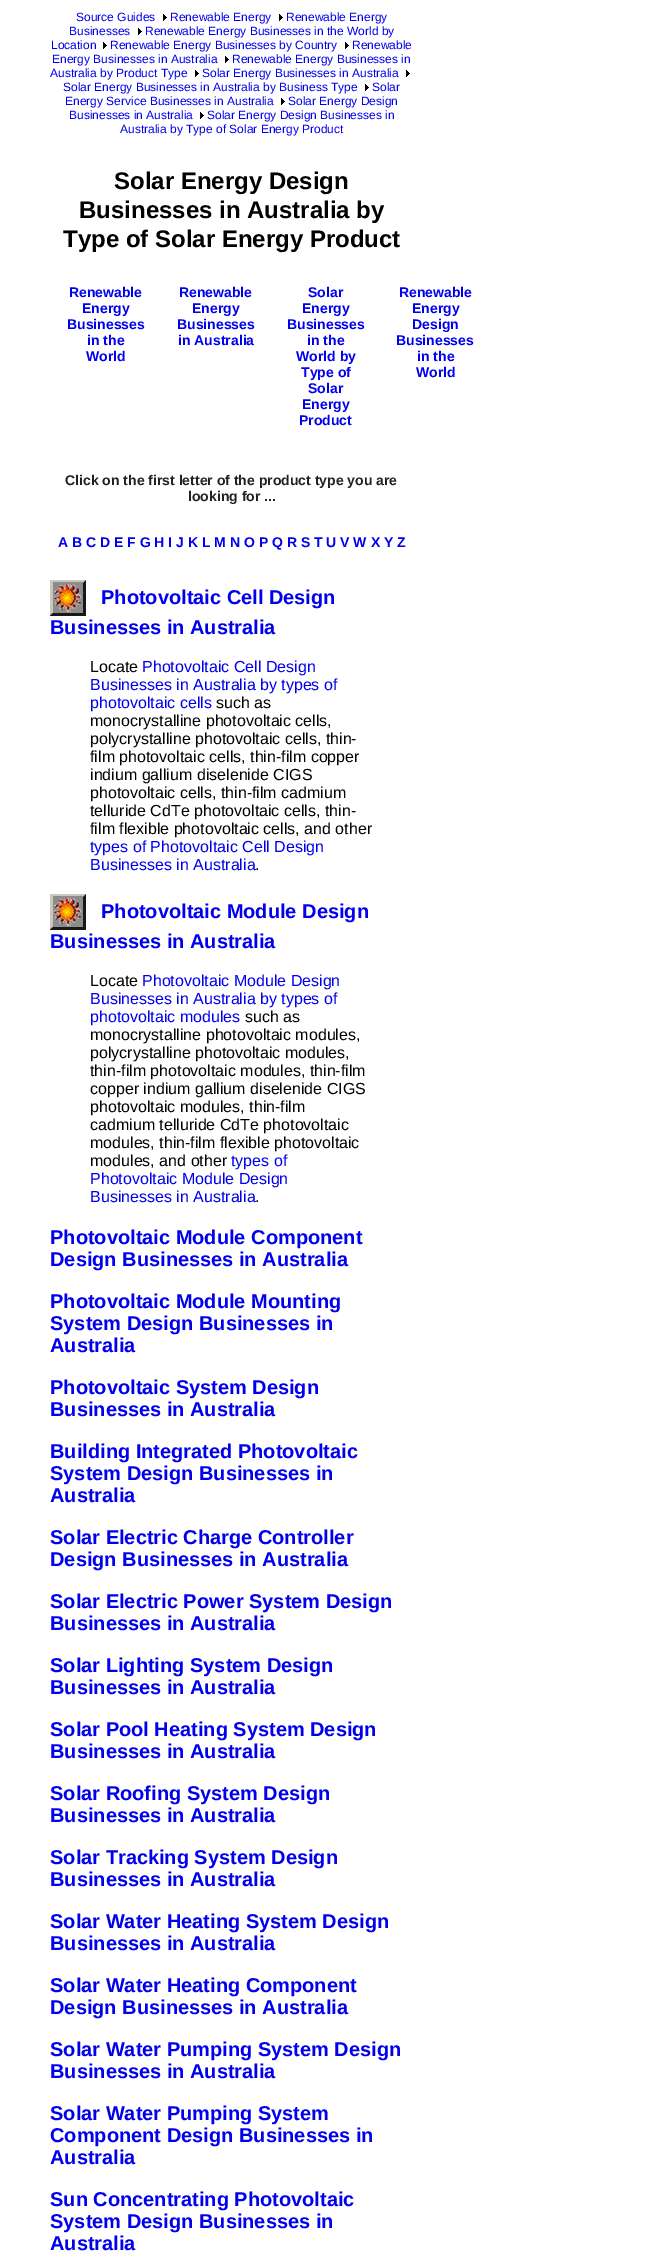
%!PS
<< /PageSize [663 2257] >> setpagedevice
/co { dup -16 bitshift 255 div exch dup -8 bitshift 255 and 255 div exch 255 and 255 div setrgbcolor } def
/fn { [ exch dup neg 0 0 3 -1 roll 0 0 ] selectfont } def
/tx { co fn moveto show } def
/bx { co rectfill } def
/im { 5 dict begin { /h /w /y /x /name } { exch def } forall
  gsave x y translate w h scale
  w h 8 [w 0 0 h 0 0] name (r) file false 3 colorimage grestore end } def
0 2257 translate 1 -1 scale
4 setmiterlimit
0 0 663 2257 16#FFFFFF bx
(media/1.raw) 163 14 4 7 im
(media/1.raw) 279 14 4 7 im
(media/1.raw) 138 28 4 7 im
(media/1.raw) 103 42 4 7 im
(media/1.raw) 345 42 4 7 im
(media/1.raw) 225 56 4 7 im
(media/1.raw) 195 70 4 7 im
(media/1.raw) 406 70 4 7 im
(media/1.raw) 365 84 4 7 im
(media/1.raw) 281 98 4 7 im
(media/1.raw) 200 112 4 7 im
(media/2.raw) 50 580 36 36 im
(media/2.raw) 50 894 36 36 im
(Source Guides) 76 21 /LiberationSans-Regular 12 16#0000EE tx
(Renewable Energy) 170 21 /LiberationSans-Regular 12 16#0000EE tx
(Renewable Energy) 286 21 /LiberationSans-Regular 12 16#0000EE tx
(Businesses) 69 35 /LiberationSans-Regular 12 16#0000EE tx
(Renewable Energy Businesses in the World by) 145 35 /LiberationSans-Regular 12 16#0000EE tx
(Location) 51 49 /LiberationSans-Regular 12 16#0000EE tx
(Renewable Energy Businesses by Country) 110 49 /LiberationSans-Regular 12 16#0000EE tx
(Renewable) 352 49 /LiberationSans-Regular 12 16#0000EE tx
(Energy Businesses in Australia) 52 63 /LiberationSans-Regular 12 16#0000EE tx
(Renewable Energy Businesses in) 232 63 /LiberationSans-Regular 12 16#0000EE tx
(Australia by Product Type) 50 77 /LiberationSans-Regular 12 16#0000EE tx
(Solar Energy Businesses in Australia) 202 77 /LiberationSans-Regular 12 16#0000EE tx
(Solar Energy Businesses in Australia by Business Type) 63 91 /LiberationSans-Regular 12 16#0000EE tx
(Solar) 372 91 /LiberationSans-Regular 12 16#0000EE tx
(Energy Service Businesses in Australia) 65 105 /LiberationSans-Regular 12 16#0000EE tx
(Solar Energy Design) 288 105 /LiberationSans-Regular 12 16#0000EE tx
(Businesses in Australia) 69 119 /LiberationSans-Regular 12 16#0000EE tx
(Solar Energy Design Businesses in) 207 119 /LiberationSans-Regular 12 16#0000EE tx
(Australia by Type of Solar Energy Product) 120 133 /LiberationSans-Regular 12 16#0000EE tx
(Solar Energy Design) 114 189 /LiberationSans-Bold 24 16#000000 tx
(Businesses in Australia by) 79 218 /LiberationSans-Bold 24 16#000000 tx
(Type of Solar Energy Product) 63 247 /LiberationSans-Bold 24 16#000000 tx
(Renewable) 69 297 /LiberationSans-Bold 14 16#0000EE tx
(Energy) 82 313 /LiberationSans-Bold 14 16#0000EE tx
(Businesses) 67 329 /LiberationSans-Bold 14 16#0000EE tx
(in the) 87 345 /LiberationSans-Bold 14 16#0000EE tx
(World) 86 361 /LiberationSans-Bold 14 16#0000EE tx
(Renewable) 179 297 /LiberationSans-Bold 14 16#0000EE tx
(Energy) 192 313 /LiberationSans-Bold 14 16#0000EE tx
(Businesses) 177 329 /LiberationSans-Bold 14 16#0000EE tx
(in Australia) 178 345 /LiberationSans-Bold 14 16#0000EE tx
(Solar) 308 297 /LiberationSans-Bold 14 16#0000EE tx
(Energy) 302 313 /LiberationSans-Bold 14 16#0000EE tx
(Businesses) 287 329 /LiberationSans-Bold 14 16#0000EE tx
(in the) 307 345 /LiberationSans-Bold 14 16#0000EE tx
(World by) 296 361 /LiberationSans-Bold 14 16#0000EE tx
(Type of) 301 377 /LiberationSans-Bold 14 16#0000EE tx
(Solar) 308 393 /LiberationSans-Bold 14 16#0000EE tx
(Energy) 302 409 /LiberationSans-Bold 14 16#0000EE tx
(Product) 299 425 /LiberationSans-Bold 14 16#0000EE tx
(Renewable) 399 297 /LiberationSans-Bold 14 16#0000EE tx
(Energy) 412 313 /LiberationSans-Bold 14 16#0000EE tx
(Design) 412 329 /LiberationSans-Bold 14 16#0000EE tx
(Businesses) 396 345 /LiberationSans-Bold 14 16#0000EE tx
(in the) 417 361 /LiberationSans-Bold 14 16#0000EE tx
(World) 416 377 /LiberationSans-Bold 14 16#0000EE tx
(Click on the first letter of the product type you are) 65 485 /LiberationSans-Bold 14 16#222222 tx
(looking for ...) 188 501 /LiberationSans-Bold 14 16#222222 tx
(A B C D E F G H I J K L M N O P Q R S T U V W X Y Z) 58 547 /LiberationSans-Bold 14 16#0000EE tx
(Photovoltaic Cell Design) 101 604 /LiberationSans-Bold 20 16#0000EE tx
(Businesses in Australia) 50 634 /LiberationSans-Bold 20 16#0000EE tx
(Locate) 90 672 /LiberationSans-Regular 16 16#000000 tx
(Photovoltaic Cell Design) 142 672 /LiberationSans-Regular 16 16#0000EE tx
(Businesses in Australia by types of) 90 690 /LiberationSans-Regular 16 16#0000EE tx
(photovoltaic cells) 90 708 /LiberationSans-Regular 16 16#0000EE tx
(such as) 216 708 /LiberationSans-Regular 16 16#000000 tx
(monocrystalline photovoltaic cells,) 90 726 /LiberationSans-Regular 16 16#000000 tx
(polycrystalline photovoltaic cells, thin-) 90 744 /LiberationSans-Regular 16 16#000000 tx
(film photovoltaic cells, thin-film copper) 90 762 /LiberationSans-Regular 16 16#000000 tx
(indium gallium diselenide CIGS) 90 780 /LiberationSans-Regular 16 16#000000 tx
(photovoltaic cells, thin-film cadmium) 90 798 /LiberationSans-Regular 16 16#000000 tx
(telluride CdTe photovoltaic cells, thin-) 90 816 /LiberationSans-Regular 16 16#000000 tx
(film flexible photovoltaic cells, and other) 90 834 /LiberationSans-Regular 16 16#000000 tx
(types of Photovoltaic Cell Design) 90 852 /LiberationSans-Regular 16 16#0000EE tx
(Businesses in Australia) 90 870 /LiberationSans-Regular 16 16#0000EE tx
(.) 255 870 /LiberationSans-Regular 16 16#000000 tx
(Photovoltaic Module Design) 101 918 /LiberationSans-Bold 20 16#0000EE tx
(Businesses in Australia) 50 948 /LiberationSans-Bold 20 16#0000EE tx
(Locate) 90 986 /LiberationSans-Regular 16 16#000000 tx
(Photovoltaic Module Design) 142 986 /LiberationSans-Regular 16 16#0000EE tx
(Businesses in Australia by types of) 90 1004 /LiberationSans-Regular 16 16#0000EE tx
(photovoltaic modules) 90 1022 /LiberationSans-Regular 16 16#0000EE tx
(such as) 245 1022 /LiberationSans-Regular 16 16#000000 tx
(monocrystalline photovoltaic modules,) 90 1040 /LiberationSans-Regular 16 16#000000 tx
(polycrystalline photovoltaic modules,) 90 1058 /LiberationSans-Regular 16 16#000000 tx
(thin-film photovoltaic modules, thin-film) 90 1076 /LiberationSans-Regular 16 16#000000 tx
(copper indium gallium diselenide CIGS) 90 1094 /LiberationSans-Regular 16 16#000000 tx
(photovoltaic modules, thin-film) 90 1112 /LiberationSans-Regular 16 16#000000 tx
(cadmium telluride CdTe photovoltaic) 90 1130 /LiberationSans-Regular 16 16#000000 tx
(modules, thin-film flexible photovoltaic) 90 1148 /LiberationSans-Regular 16 16#000000 tx
(modules, and other) 90 1166 /LiberationSans-Regular 16 16#000000 tx
(types of) 231 1166 /LiberationSans-Regular 16 16#0000EE tx
(Photovoltaic Module Design) 90 1184 /LiberationSans-Regular 16 16#0000EE tx
(Businesses in Australia) 90 1202 /LiberationSans-Regular 16 16#0000EE tx
(.) 255 1202 /LiberationSans-Regular 16 16#000000 tx
(Photovoltaic Module Component) 50 1244 /LiberationSans-Bold 20 16#0000EE tx
(Design Businesses in Australia) 50 1266 /LiberationSans-Bold 20 16#0000EE tx
(Photovoltaic Module Mounting) 50 1308 /LiberationSans-Bold 20 16#0000EE tx
(System Design Businesses in) 50 1330 /LiberationSans-Bold 20 16#0000EE tx
(Australia) 50 1352 /LiberationSans-Bold 20 16#0000EE tx
(Photovoltaic System Design) 50 1394 /LiberationSans-Bold 20 16#0000EE tx
(Businesses in Australia) 50 1416 /LiberationSans-Bold 20 16#0000EE tx
(Building Integrated Photovoltaic) 50 1458 /LiberationSans-Bold 20 16#0000EE tx
(System Design Businesses in) 50 1480 /LiberationSans-Bold 20 16#0000EE tx
(Australia) 50 1502 /LiberationSans-Bold 20 16#0000EE tx
(Solar Electric Charge Controller) 50 1544 /LiberationSans-Bold 20 16#0000EE tx
(Design Businesses in Australia) 50 1566 /LiberationSans-Bold 20 16#0000EE tx
(Solar Electric Power System Design) 50 1608 /LiberationSans-Bold 20 16#0000EE tx
(Businesses in Australia) 50 1630 /LiberationSans-Bold 20 16#0000EE tx
(Solar Lighting System Design) 50 1672 /LiberationSans-Bold 20 16#0000EE tx
(Businesses in Australia) 50 1694 /LiberationSans-Bold 20 16#0000EE tx
(Solar Pool Heating System Design) 50 1736 /LiberationSans-Bold 20 16#0000EE tx
(Businesses in Australia) 50 1758 /LiberationSans-Bold 20 16#0000EE tx
(Solar Roofing System Design) 50 1800 /LiberationSans-Bold 20 16#0000EE tx
(Businesses in Australia) 50 1822 /LiberationSans-Bold 20 16#0000EE tx
(Solar Tracking System Design) 50 1864 /LiberationSans-Bold 20 16#0000EE tx
(Businesses in Australia) 50 1886 /LiberationSans-Bold 20 16#0000EE tx
(Solar Water Heating System Design) 50 1928 /LiberationSans-Bold 20 16#0000EE tx
(Businesses in Australia) 50 1950 /LiberationSans-Bold 20 16#0000EE tx
(Solar Water Heating Component) 50 1992 /LiberationSans-Bold 20 16#0000EE tx
(Design Businesses in Australia) 50 2014 /LiberationSans-Bold 20 16#0000EE tx
(Solar Water Pumping System Design) 50 2056 /LiberationSans-Bold 20 16#0000EE tx
(Businesses in Australia) 50 2078 /LiberationSans-Bold 20 16#0000EE tx
(Solar Water Pumping System) 50 2120 /LiberationSans-Bold 20 16#0000EE tx
(Component Design Businesses in) 50 2142 /LiberationSans-Bold 20 16#0000EE tx
(Australia) 50 2164 /LiberationSans-Bold 20 16#0000EE tx
(Sun Concentrating Photovoltaic) 50 2206 /LiberationSans-Bold 20 16#0000EE tx
(System Design Businesses in) 50 2228 /LiberationSans-Bold 20 16#0000EE tx
(Australia) 50 2250 /LiberationSans-Bold 20 16#0000EE tx
showpage
